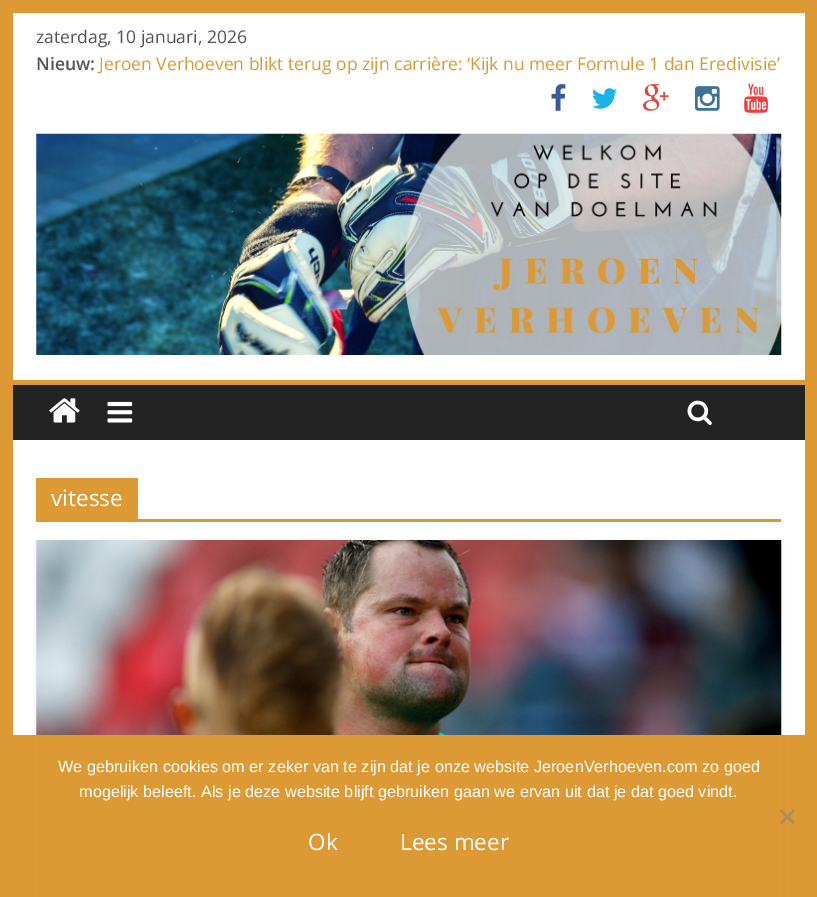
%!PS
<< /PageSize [817 897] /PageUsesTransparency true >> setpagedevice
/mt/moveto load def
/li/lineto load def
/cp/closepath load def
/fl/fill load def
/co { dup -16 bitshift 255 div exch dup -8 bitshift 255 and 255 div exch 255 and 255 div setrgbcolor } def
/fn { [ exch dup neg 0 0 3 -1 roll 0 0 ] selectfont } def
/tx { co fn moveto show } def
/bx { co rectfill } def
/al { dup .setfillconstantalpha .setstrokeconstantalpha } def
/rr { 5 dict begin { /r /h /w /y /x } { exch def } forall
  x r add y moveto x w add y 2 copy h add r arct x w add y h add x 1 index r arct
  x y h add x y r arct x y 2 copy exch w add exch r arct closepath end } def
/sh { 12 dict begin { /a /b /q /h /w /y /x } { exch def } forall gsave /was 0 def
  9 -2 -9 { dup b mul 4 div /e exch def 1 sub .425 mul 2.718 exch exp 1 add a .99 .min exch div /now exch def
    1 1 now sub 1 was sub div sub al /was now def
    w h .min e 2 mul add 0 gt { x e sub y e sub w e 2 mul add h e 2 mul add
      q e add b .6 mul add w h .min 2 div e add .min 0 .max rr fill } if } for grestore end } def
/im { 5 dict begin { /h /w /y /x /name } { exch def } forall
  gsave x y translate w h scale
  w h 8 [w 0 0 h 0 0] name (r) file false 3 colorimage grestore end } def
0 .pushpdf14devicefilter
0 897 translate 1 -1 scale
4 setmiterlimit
0 0 817 897 16#DD9933 bx
13 13 792 367 16#FFFFFF bx
(media/1.raw) 551 84 15 27 im
(media/2.raw) 592 88 26 21 im
(media/3.raw) 643 84 26 27 im
(media/4.raw) 695 86 25 25 im
(media/5.raw) 744 84 24 29 im
(media/6.raw) 36 133 746 222 im
13 385 792 55 16#232323 bx
(media/7.raw) 49 398 31 25 im
(media/8.raw) 107 401 26 22 im
(media/9.raw) 687 400 25 25 im
13 440 792 295 16#FFFFFF bx
36 519 745 3 16#DD9933 bx
36 478 102 41 16#DD9933 bx
16#000000 co
36 541 745 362 0 2 .1 sh
(media/10.raw) 36 540 746 195 im
34 735 749 162 16#DD9933 bx
16#AF8D5A co
793 809.5 mt 795 811 li 782 824.5 li 780 822.5 li cp fl
780 811 mt 782 809.5 li 795 822.5 li 793 824.5 li cp fl
(zaterdag, 10 januari, 2026) 36 43 /OpenSans-Regular 17.5 16#555555 tx
(Nieuw:) 36 70 /OpenSans-SemiBold 17.5 16#555555 tx
(Jeroen Verhoeven blikt terug op zijn carrière: ‘Kijk nu meer Formule 1 dan Eredivisie’) 99 70 /OpenSans-Regular 17.5 16#DD9933 tx
(vitesse) 51 506 /OpenSans-Regular 22.5 16#FFFFFF tx
(We gebruiken cookies om er zeker van te zijn dat je onze website JeroenVerhoeven.com zo goed) 58 772 /LiberationSans-Regular 16.25 16#FFFFFF tx
(mogelijk beleeft. Als je deze website blijft gebruiken gaan we ervan uit dat je dat goed vindt.) 79 797 /LiberationSans-Regular 16.25 16#FFFFFF tx
(Ok) 308 850 /OpenSans-Regular 22.5 16#FFFFFF tx
(Lees meer) 400 850 /OpenSans-Regular 22.5 16#FFFFFF tx
.poppdf14devicefilter showpage
